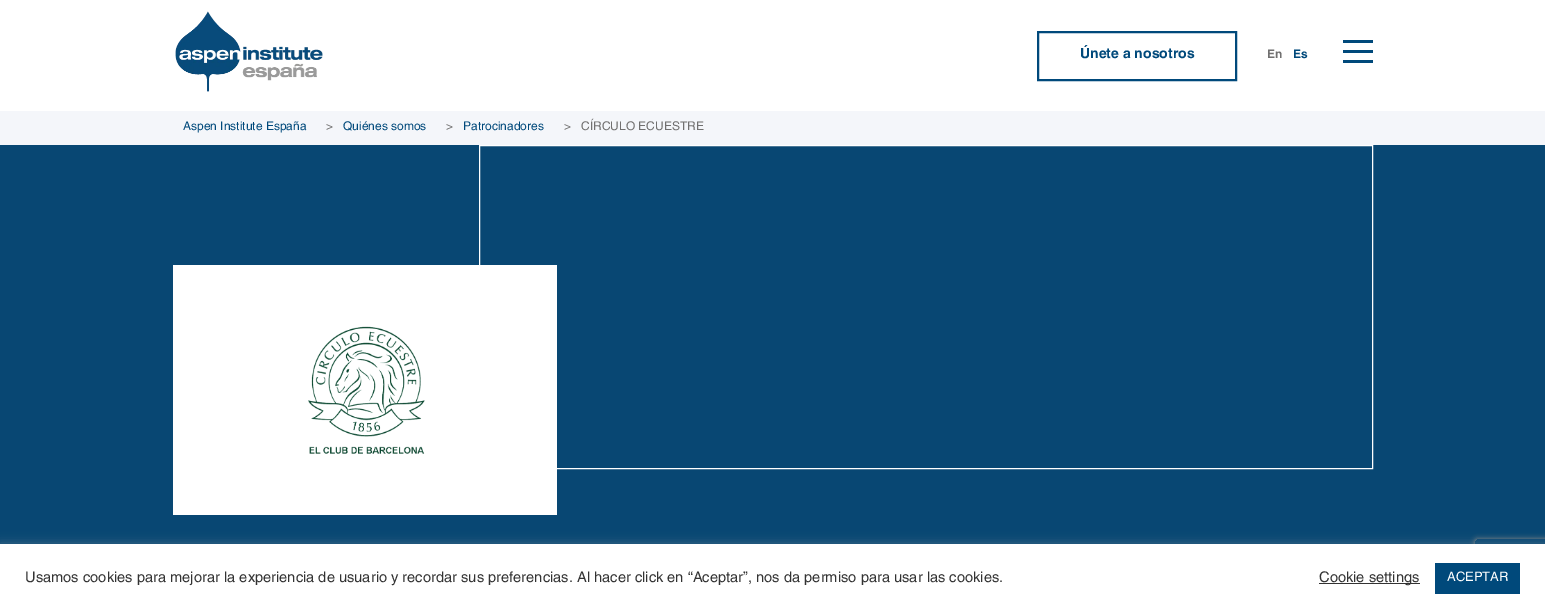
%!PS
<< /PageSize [1545 613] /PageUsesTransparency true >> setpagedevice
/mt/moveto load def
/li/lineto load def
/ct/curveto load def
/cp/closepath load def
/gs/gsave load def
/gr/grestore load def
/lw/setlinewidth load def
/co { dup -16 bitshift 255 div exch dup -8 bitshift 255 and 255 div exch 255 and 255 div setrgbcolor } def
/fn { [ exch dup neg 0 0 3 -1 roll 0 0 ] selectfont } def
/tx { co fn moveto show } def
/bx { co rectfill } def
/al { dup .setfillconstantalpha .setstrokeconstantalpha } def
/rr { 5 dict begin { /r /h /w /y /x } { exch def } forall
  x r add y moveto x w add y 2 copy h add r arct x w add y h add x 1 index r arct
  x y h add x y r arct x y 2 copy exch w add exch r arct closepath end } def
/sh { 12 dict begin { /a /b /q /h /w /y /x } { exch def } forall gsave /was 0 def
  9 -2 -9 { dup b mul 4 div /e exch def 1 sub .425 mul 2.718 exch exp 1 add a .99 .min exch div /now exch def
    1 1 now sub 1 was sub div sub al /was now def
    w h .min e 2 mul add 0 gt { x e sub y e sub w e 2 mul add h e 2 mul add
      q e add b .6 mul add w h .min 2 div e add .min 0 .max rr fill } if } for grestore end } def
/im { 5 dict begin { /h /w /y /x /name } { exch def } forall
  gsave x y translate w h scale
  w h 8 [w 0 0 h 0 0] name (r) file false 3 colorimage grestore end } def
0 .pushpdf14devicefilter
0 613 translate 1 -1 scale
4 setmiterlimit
0 0 1545 613 16#F4F6FA bx
0 0 1545 111 16#FFFFFF bx
(media/1.raw) 175 11 148 81 im
16#00497B co
2 lw
1038 32 198 48 rectstroke
1343 40 30 3 16#00497B bx
1343 50 30 3 16#00497B bx
1343 60 30 3 16#00497B bx
0 145 1545 399 16#084773 bx
16#FFFFFF co
1 lw
479.5 145.5 893 323 rectstroke
173 265 384 250 16#FFFFFF bx
(media/2.raw) 308 326 117 128 im
gs
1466 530 mt 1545 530 li 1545 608 li 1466 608 li cp 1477 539 mt 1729 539 li 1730 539 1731 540 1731 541 ct 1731 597 li 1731 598 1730 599 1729 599 ct 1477 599 li 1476 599 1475 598 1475 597 ct 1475 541 li 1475 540 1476 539 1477 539 ct cp eoclip newpath
16#808080 co
1475 539 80 60 2 2.5 1 sh
gr
16#ACABAB co
0 543 1545 69 0 5 .3 sh
0 544 1545 69 16#FFFFFF bx
1319 583 101 1 16#333333 bx
1435 563 85 31 16#00497B bx
(Únete a nosotros) 1080 58 /Helvetica-Bold 14 16#00497B tx
(En) 1267 58 /Helvetica-Bold 12 16#717070 tx
(Es) 1293 58 /Helvetica-Bold 12 16#00497B tx
(Aspen Institute España) 183 130 /Helvetica-Regular 12 16#00497B tx
(>) 326 130 /Helvetica-Regular 12 16#717070 tx
(Quiénes somos) 343 130 /Helvetica-Regular 12 16#00497B tx
(>) 446 130 /Helvetica-Regular 12 16#717070 tx
(Patrocinadores) 463 130 /Helvetica-Regular 12 16#00497B tx
(>) 564 130 /Helvetica-Regular 12 16#717070 tx
(CÍRCULO ECUESTRE) 581 130 /Helvetica-Regular 12 16#717070 tx
(Usamos cookies para mejorar la experiencia de usuario y recordar sus preferencias. Al hacer click en “Aceptar”, nos da permiso para usar las cookies.) 25 582 /Helvetica-Regular 14.67 16#333333 tx
(Cookie settings) 1319 582 /Helvetica-Regular 14.67 16#333333 tx
(ACEPTAR) 1447 581 /Helvetica-Regular 13 16#FFFFFF tx
.poppdf14devicefilter showpage
